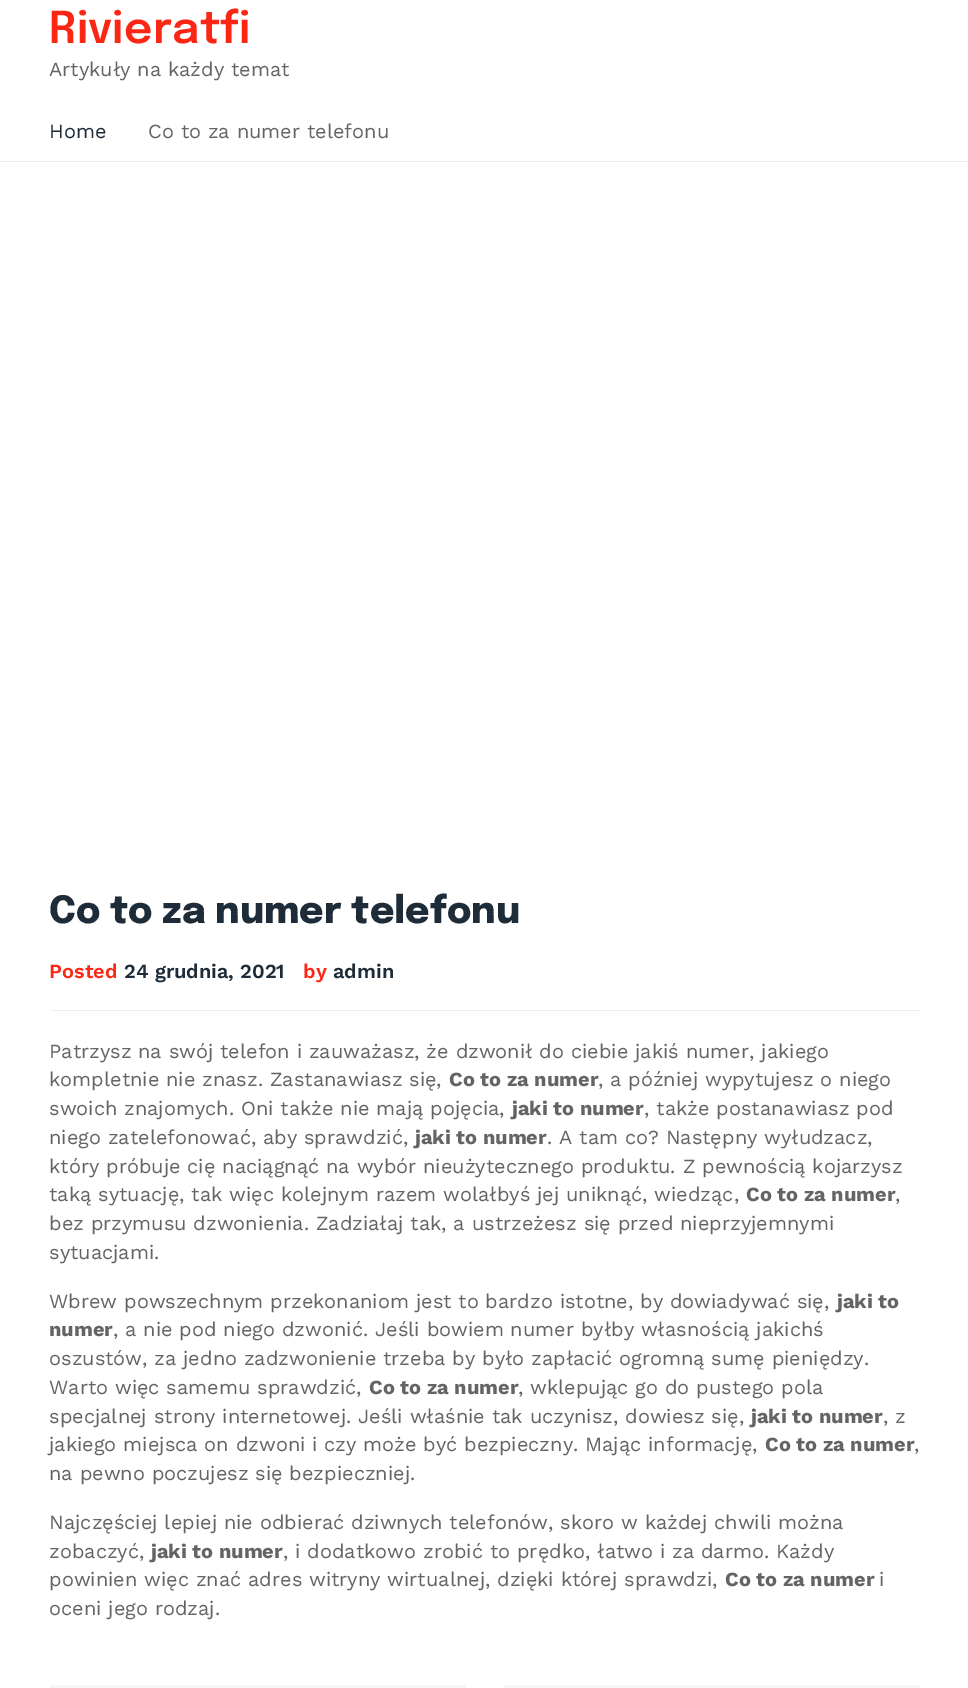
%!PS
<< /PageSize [968 1688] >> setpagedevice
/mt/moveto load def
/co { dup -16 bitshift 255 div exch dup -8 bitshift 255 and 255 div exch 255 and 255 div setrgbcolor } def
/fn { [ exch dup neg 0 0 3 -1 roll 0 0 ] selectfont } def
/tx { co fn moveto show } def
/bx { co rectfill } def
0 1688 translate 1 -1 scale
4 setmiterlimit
0 0 968 1688 16#FFFFFF bx
0 161 968 1 16#EEEEEE bx
50 1010 870 1 16#EEEEEE bx
50 1685 416 3 16#F6F6F6 bx
504 1685 416 3 16#F6F6F6 bx
/Epilogue-SemiBold 43.75 fn
16#FB2614 co
49 43 mt .25 0 (Rivieratfi) ashow
(Artykuły na każdy temat) 49 76 /WorkSans-Regular 20 16#636465 tx
(Home) 49 138 /WorkSans-Regular 20 16#1D2C38 tx
(Co to za numer telefonu) 148 138 /WorkSans-Regular 20 16#636465 tx
(Co to za numer telefonu) 49 923 /Epilogue-ExtraBold 37.5 16#1D2C38 tx
(Posted) 49 978 /WorkSans-SemiBold 20 16#FB2614 tx
(24 grudnia, 2021) 124 978 /WorkSans-SemiBold 20 16#1D2C38 tx
(by) 303 978 /WorkSans-SemiBold 20 16#FB2614 tx
(admin) 333 978 /WorkSans-SemiBold 20 16#1D2C38 tx
(Patrzysz na swój telefon i zauważasz, że dzwonił do ciebie jakiś numer, jakiego) 49 1058 /WorkSans-Regular 20 16#636465 tx
(kompletnie nie znasz. Zastanawiasz się,) 49 1086 /WorkSans-Regular 20 16#636465 tx
(Co to za numer) 449 1086 /WorkSans-Bold 20 16#636465 tx
(, a później wypytujesz o niego) 598 1086 /WorkSans-Regular 20 16#636465 tx
(swoich znajomych. Oni także nie mają pojęcia,) 49 1115 /WorkSans-Regular 20 16#636465 tx
(jaki to numer) 512 1115 /WorkSans-Bold 20 16#636465 tx
(, także postanawiasz pod) 644 1115 /WorkSans-Regular 20 16#636465 tx
(niego zatelefonować, aby sprawdzić,) 49 1144 /WorkSans-Regular 20 16#636465 tx
(jaki to numer) 415 1144 /WorkSans-Bold 20 16#636465 tx
(. A tam co? Następny wyłudzacz,) 547 1144 /WorkSans-Regular 20 16#636465 tx
(który próbuje cię naciągnąć na wybór nieużytecznego produktu. Z pewnością kojarzysz) 49 1173 /WorkSans-Regular 20 16#636465 tx
(taką sytuację, tak więc kolejnym razem wolałbyś jej uniknąć, wiedząc,) 49 1201 /WorkSans-Regular 20 16#636465 tx
(Co to za numer) 746 1201 /WorkSans-Bold 20 16#636465 tx
(,) 895 1201 /WorkSans-Regular 20 16#636465 tx
(bez przymusu dzwonienia. Zadziałaj tak, a ustrzeżesz się przed nieprzyjemnymi) 49 1230 /WorkSans-Regular 20 16#636465 tx
(sytuacjami.) 49 1259 /WorkSans-Regular 20 16#636465 tx
(Wbrew powszechnym przekonaniom jest to bardzo istotne, by dowiadywać się,) 49 1308 /WorkSans-Regular 20 16#636465 tx
(jaki to) 837 1308 /WorkSans-Bold 20 16#636465 tx
(numer) 49 1336 /WorkSans-Bold 20 16#636465 tx
(, a nie pod niego dzwonić. Jeśli bowiem numer byłby własnością jakichś) 113 1336 /WorkSans-Regular 20 16#636465 tx
(oszustów, za jedno zadzwonienie trzeba by było zapłacić ogromną sumę pieniędzy.) 49 1365 /WorkSans-Regular 20 16#636465 tx
(Warto więc samemu sprawdzić,) 49 1394 /WorkSans-Regular 20 16#636465 tx
(Co to za numer) 369 1394 /WorkSans-Bold 20 16#636465 tx
(, wklepując go do pustego pola) 518 1394 /WorkSans-Regular 20 16#636465 tx
(specjalnej strony internetowej. Jeśli właśnie tak uczynisz, dowiesz się,) 49 1423 /WorkSans-Regular 20 16#636465 tx
(jaki to numer) 751 1423 /WorkSans-Bold 20 16#636465 tx
(, z) 883 1423 /WorkSans-Regular 20 16#636465 tx
(jakiego miejsca on dzwoni i czy może być bezpieczny. Mając informację,) 49 1451 /WorkSans-Regular 20 16#636465 tx
(Co to za numer) 765 1451 /WorkSans-Bold 20 16#636465 tx
(,) 914 1451 /WorkSans-Regular 20 16#636465 tx
(na pewno poczujesz się bezpieczniej.) 49 1480 /WorkSans-Regular 20 16#636465 tx
(Najczęściej lepiej nie odbierać dziwnych telefonów, skoro w każdej chwili można) 49 1529 /WorkSans-Regular 20 16#636465 tx
(zobaczyć,) 49 1558 /WorkSans-Regular 20 16#636465 tx
(jaki to numer) 151 1558 /WorkSans-Bold 20 16#636465 tx
(, i dodatkowo zrobić to prędko, łatwo i za darmo. Każdy) 283 1558 /WorkSans-Regular 20 16#636465 tx
(powinien więc znać adres witryny wirtualnej, dzięki której sprawdzi,) 49 1586 /WorkSans-Regular 20 16#636465 tx
(Co to za numer) 725 1586 /WorkSans-Bold 20 16#636465 tx
(i) 879 1586 /WorkSans-Regular 20 16#636465 tx
(oceni jego rodzaj.) 49 1615 /WorkSans-Regular 20 16#636465 tx
showpage
